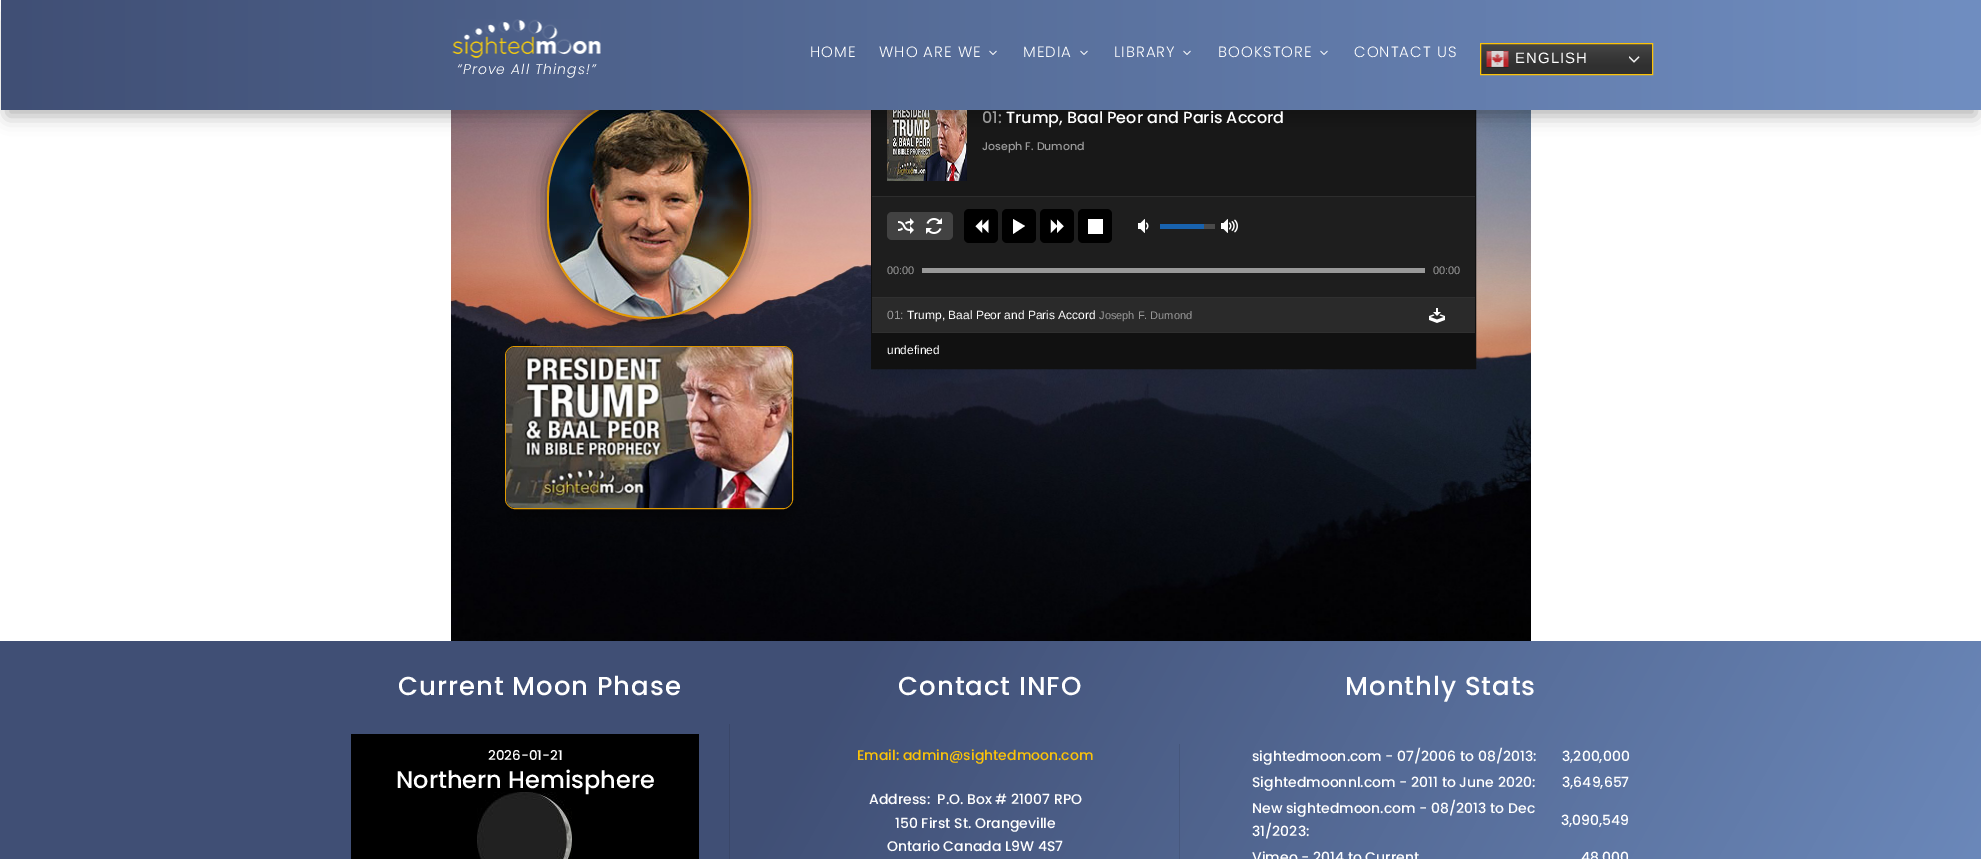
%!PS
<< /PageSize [1981 859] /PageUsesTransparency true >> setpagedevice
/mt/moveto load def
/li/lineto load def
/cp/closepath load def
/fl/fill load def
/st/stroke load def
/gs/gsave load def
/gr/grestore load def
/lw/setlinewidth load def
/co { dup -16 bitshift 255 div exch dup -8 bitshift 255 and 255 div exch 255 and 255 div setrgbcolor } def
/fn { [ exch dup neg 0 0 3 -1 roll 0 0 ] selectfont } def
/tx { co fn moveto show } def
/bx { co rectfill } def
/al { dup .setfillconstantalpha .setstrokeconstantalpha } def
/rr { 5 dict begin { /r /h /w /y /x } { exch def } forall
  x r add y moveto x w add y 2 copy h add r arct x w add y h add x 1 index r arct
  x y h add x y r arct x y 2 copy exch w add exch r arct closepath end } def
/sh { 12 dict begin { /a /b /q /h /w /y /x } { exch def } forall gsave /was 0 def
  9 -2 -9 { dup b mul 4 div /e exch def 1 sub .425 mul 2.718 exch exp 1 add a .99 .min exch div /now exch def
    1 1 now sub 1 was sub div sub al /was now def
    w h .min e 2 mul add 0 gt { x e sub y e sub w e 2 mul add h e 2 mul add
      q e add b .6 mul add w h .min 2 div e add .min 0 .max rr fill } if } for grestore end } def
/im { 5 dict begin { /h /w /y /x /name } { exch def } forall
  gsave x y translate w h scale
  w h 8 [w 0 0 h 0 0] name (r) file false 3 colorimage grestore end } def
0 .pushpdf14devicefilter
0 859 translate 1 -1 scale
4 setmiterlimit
0 0 1981 859 16#FFFFFF bx
(media/8.raw) 451 110 1080 531 im
16#000000 co
547 97 204 224 102 9 .6 sh
16#E09900 co
2 lw
548 96 202 222 101 rr st
(media/9.raw) 549 110 200 207 im
16#111111 co
1 lw
871.5 85.5 604 283 rectstroke
872 110 603 86 16#181818 bx
(media/11.raw) 887 110 80 71 im
16#000000 co
7 18 1969 98 0 9 .3 sh
gs 1 0 mt 1981 0 li 1981 110 li 1 110 li cp clip newpath
<< /ShadingType 2 /ColorSpace /DeviceRGB /Coords [.5 55 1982 55] /Extend [true true] /Function << /FunctionType 2 /Domain [0 1] /C0 [.251 .31 .459] /C1 [.439 .557 .757] /N 1 >> >> shfill gr
(media/1.raw) 989 50 8 5 im
(media/2.raw) 1080 50 8 5 im
(media/3.raw) 1183 50 8 5 im
(media/4.raw) 1320 50 8 5 im
gs 1481 44 mt 1652 44 li 1652 74 li 1481 74 li cp clip newpath
<< /ShadingType 2 /ColorSpace /DeviceRGB /Coords [1566 43 1566 75] /Extend [true true] /Function << /FunctionType 3 /Domain [0 1] /Functions [<< /FunctionType 2 /Domain [0 1] /C0 [.278 .278 .278] /C1 [.188 .188 .188] /N 1 >> << /FunctionType 2 /Domain [0 1] /C0 [.188 .188 .188] /C1 [.188 .188 .188] /N 1 >>] /Bounds [.7] /Encode [0 1 0 1] >> >> shfill gr
16#FCC308 co
1480.5 43.5 172 31 rectstroke
(media/5.raw) 1486 51 23 17 im
(media/6.raw) 1629 56 11 7 im
(media/7.raw) 452 19 149 39 im
16#000000 co
511 364 276 151 4 9 .5 sh
16#E09900 co
505.5 346.5 287 162 9.5 rr st
(media/10.raw) 506 347 286 161 im
872 197 603 100 16#1E1E1E bx
872 196 603 1 16#2D2D2D bx
16#424242 co
887 212 66 28 5 rr fl
(media/12.raw) 898 218 16 16 im
(media/13.raw) 926 218 16 16 im
16#000000 co
964 209 34 34 5 rr fl
(media/14.raw) 975 219 14 14 im
1002 209 34 34 5 rr fl
16#FFFFFF co
1013 219 mt 1025 226 li 1013 234 li cp fl
16#000000 co
1040 209 34 34 5 rr fl
(media/15.raw) 1050 219 14 14 im
1078 209 34 34 5 rr fl
1088 219 15 15 16#FFFFFF bx
(media/16.raw) 1138 219 11 14 im
1204 224 11 5 16#4A4A4A bx
1160 224 44 5 16#1862AE bx
(media/17.raw) 1221 219 17 14 im
922 268 503 5 16#999999 bx
872 298 603 34 16#2A2A2A bx
872 297 603 1 16#303030 bx
(media/18.raw) 1429 308 16 15 im
872 333 603 35 16#111111 bx
872 332 603 1 16#303030 bx
gs 0 641 mt 1981 641 li 1981 859 li 0 859 li cp clip newpath
<< /ShadingType 2 /ColorSpace /DeviceRGB /Coords [135 398 1846 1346] /Extend [true true] /Function << /FunctionType 3 /Domain [0 1] /Functions [<< /FunctionType 2 /Domain [0 1] /C0 [.251 .31 .459] /C1 [.251 .31 .459] /N 1 >> << /FunctionType 2 /Domain [0 1] /C0 [.251 .31 .459] /C1 [.439 .557 .757] /N 1 >>] /Bounds [.38] /Encode [0 1 0 1] >> >> shfill gr
gs 1179 744 mt 1180 744 li 1180 859 li 1179 859 li cp clip newpath
<< /ShadingType 2 /ColorSpace /DeviceRGB /Coords [135 398 1846 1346] /Extend [true true] /Function << /FunctionType 3 /Domain [0 1] /Functions [<< /FunctionType 2 /Domain [0 1] /C0 [.227 .278 .412] /C1 [.227 .278 .412] /N 1 >> << /FunctionType 2 /Domain [0 1] /C0 [.227 .278 .412] /C1 [.396 .502 .682] /N 1 >>] /Bounds [.38] /Encode [0 1 0 1] >> >> shfill gr
729 724 1 135 16#3A4769 bx
351 734 348 125 16#000000 bx
/Poppins-Light 15 fn
16#FFFFFF co
810 57 mt 1 0 (HOME) ashow
879 57 mt 1 0 (WHO ARE WE) ashow
1023 57 mt 1 0 (MEDIA) ashow
1114 57 mt 1 0 (LIBRARY) ashow
1218 57 mt 1 0 (BOOKSTORE) ashow
1354 57 mt 1 0 (CONTACT US) ashow
/LiberationSans-Regular 15 fn
1515 63 mt 1 0 (ENGLISH) ashow
/Poppins-LightItalic 14 fn
457 74 mt 1 0 (“Prove All Things!”) ashow
(01:) 982 123 /Poppins-Medium 16 16#999999 tx
(Trump, Baal Peor and Paris Accord) 1006 123 /Poppins-Medium 16 16#FFFFFF tx
(Joseph F. Dumond) 982 150 /Poppins-Medium 11 16#999999 tx
(00:00) 887 274 /LiberationSans-Regular 11 16#999999 tx
(00:00) 1433 274 /LiberationSans-Regular 11 16#999999 tx
(01:) 887 319 /LiberationSans-Regular 12 16#999999 tx
(Trump, Baal Peor and Paris Accord) 907 319 /LiberationSans-Regular 12 16#FFFFFF tx
(Joseph F. Dumond) 1099 319 /LiberationSans-Regular 11 16#999999 tx
(undefined) 887 354 /LiberationSans-Regular 12 16#FFFFFF tx
/Poppins-Medium 26 fn
398 695 mt 1 0 (Current Moon Phase) ashow
(2026-01-21) 488 760 /Poppins-Medium 13.5 16#FFFFFF tx
(Northern Hemisphere) 396 788 /Poppins-Medium 24 16#FFFFFF tx
(media/19.raw) 477 792 95 67 im
/Poppins-Medium 26 fn
898 695 mt 1 0 (Contact INFO) ashow
(Email: admin@sightedmoon.com) 857 760 /Poppins-Medium 14 16#FCC308 tx
(Address:  P.O. Box # 21007 RPO) 869 804 /Poppins-Medium 14 16#FFFFFF tx
(150 First St. Orangeville) 895 828 /Poppins-Medium 14 16#FFFFFF tx
(Ontario Canada L9W 4S7) 887 851 /Poppins-Medium 14 16#FFFFFF tx
/Poppins-Medium 26 fn
1345 695 mt 1 0 (Monthly Stats) ashow
(sightedmoon.com - 07/2006 to 08/2013:) 1252 761 /Poppins-Medium 14 16#FFFFFF tx
(3,200,000) 1562 761 /Poppins-Medium 14 16#FFFFFF tx
(Sightedmoonnl.com - 2011 to June 2020:) 1252 787 /Poppins-Medium 14 16#FFFFFF tx
(3,649,657) 1562 787 /Poppins-Medium 14 16#FFFFFF tx
(New sightedmoon.com - 08/2013 to Dec) 1252 813 /Poppins-Medium 14 16#FFFFFF tx
(31/2023:) 1252 836 /Poppins-Medium 14 16#FFFFFF tx
(3,090,549) 1561 825 /Poppins-Medium 14 16#FFFFFF tx
(Vimeo - 2014 to Current) 1252 862 /Poppins-Medium 14 16#FFFFFF tx
(48,000) 1581 862 /Poppins-Medium 14 16#FFFFFF tx
.poppdf14devicefilter showpage
